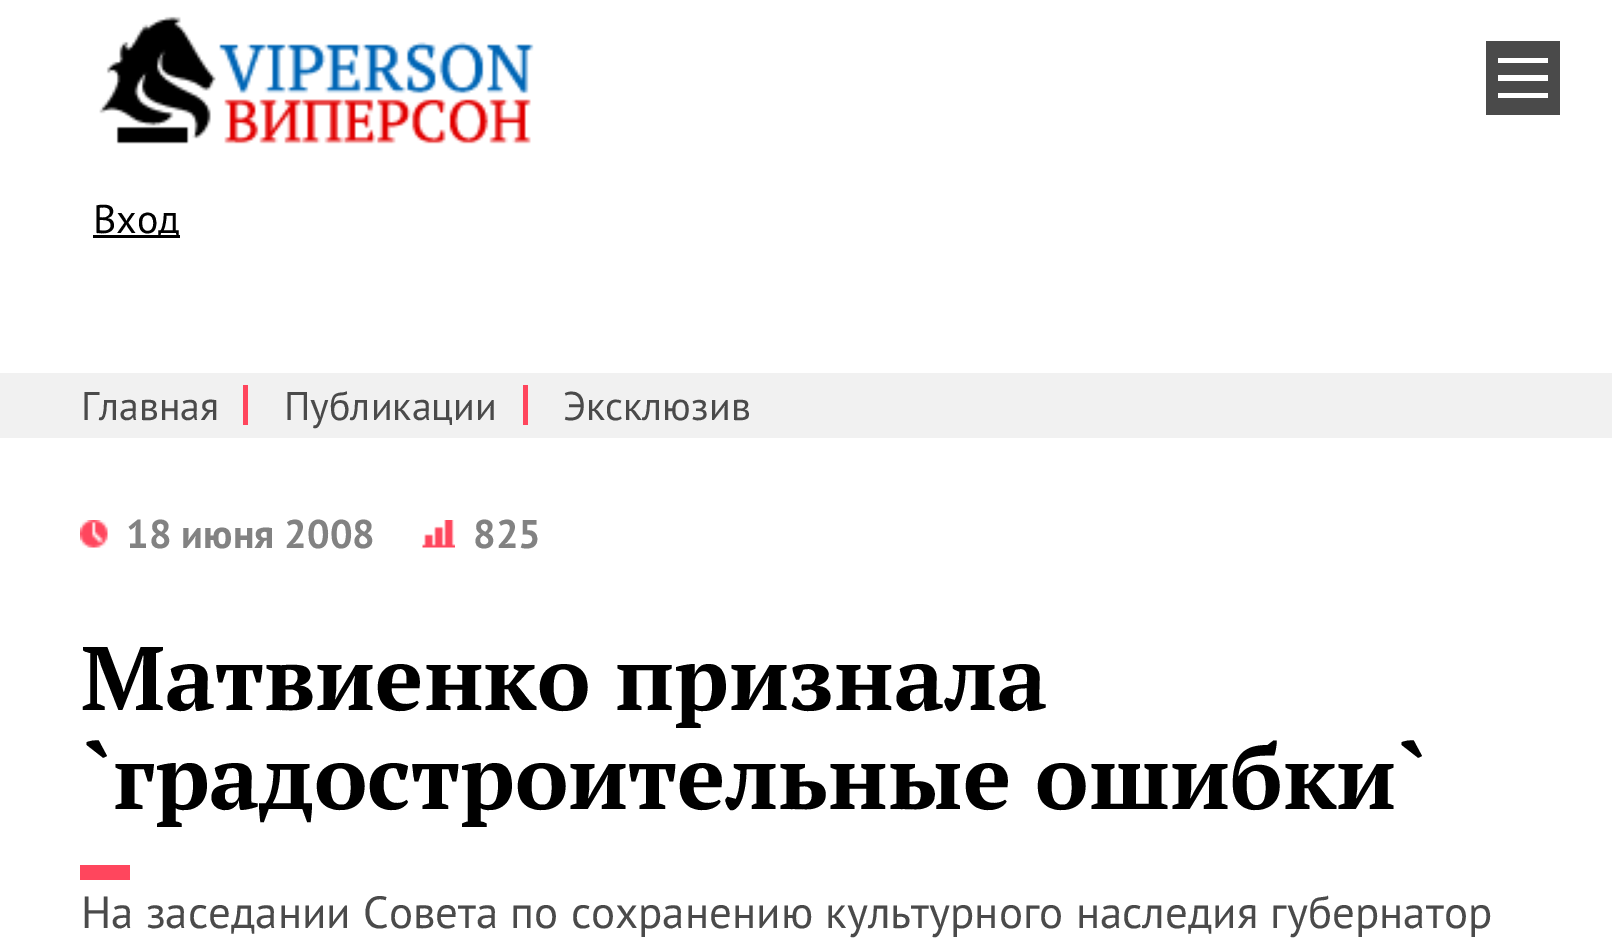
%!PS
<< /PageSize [1612 949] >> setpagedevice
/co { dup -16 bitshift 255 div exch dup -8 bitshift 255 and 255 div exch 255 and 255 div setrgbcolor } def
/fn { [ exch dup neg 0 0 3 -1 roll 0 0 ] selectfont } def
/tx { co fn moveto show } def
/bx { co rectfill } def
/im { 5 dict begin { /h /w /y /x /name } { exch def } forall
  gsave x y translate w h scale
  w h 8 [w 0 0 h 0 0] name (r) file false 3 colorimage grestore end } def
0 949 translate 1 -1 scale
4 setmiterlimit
0 0 1612 949 16#FFFFFF bx
(media/1.raw) 99 16 435 128 im
1486 41 74 74 16#4A4A4A bx
1498 58 50 5 16#FFFFFF bx
1498 93 50 5 16#FFFFFF bx
1498 75 50 6 16#FFFFFF bx
93 235 87 3 16#000000 bx
0 373 1612 65 16#F1F1F1 bx
243 385 5 40 16#FF465D bx
523 385 5 40 16#FF465D bx
(media/2.raw) 80 520 28 28 im
(media/3.raw) 422 520 33 28 im
80 865 50 15 16#FF465D bx
(Вход) 93 233 /PTSans-Regular 40 16#000000 tx
(Главная) 81 420 /PTSans-Regular 40 16#4A4A4A tx
(Публикации) 284 420 /PTSans-Regular 40 16#4A4A4A tx
(Эксклюзив) 563 420 /PTSans-Regular 40 16#4A4A4A tx
(18 июня 2008) 126 548 /PTSans-Bold 40 16#828282 tx
(825) 473 548 /PTSans-Bold 40 16#828282 tx
(Матвиенко признала) 81 710 /PTSerif-Bold 90 16#000000 tx
(`градостроительные ошибки`) 81 809 /PTSerif-Bold 90 16#000000 tx
(На заседании Совета по сохранению культурного наследия губернатор) 81 928 /PTSans-Regular 45 16#4A4A4A tx
showpage
